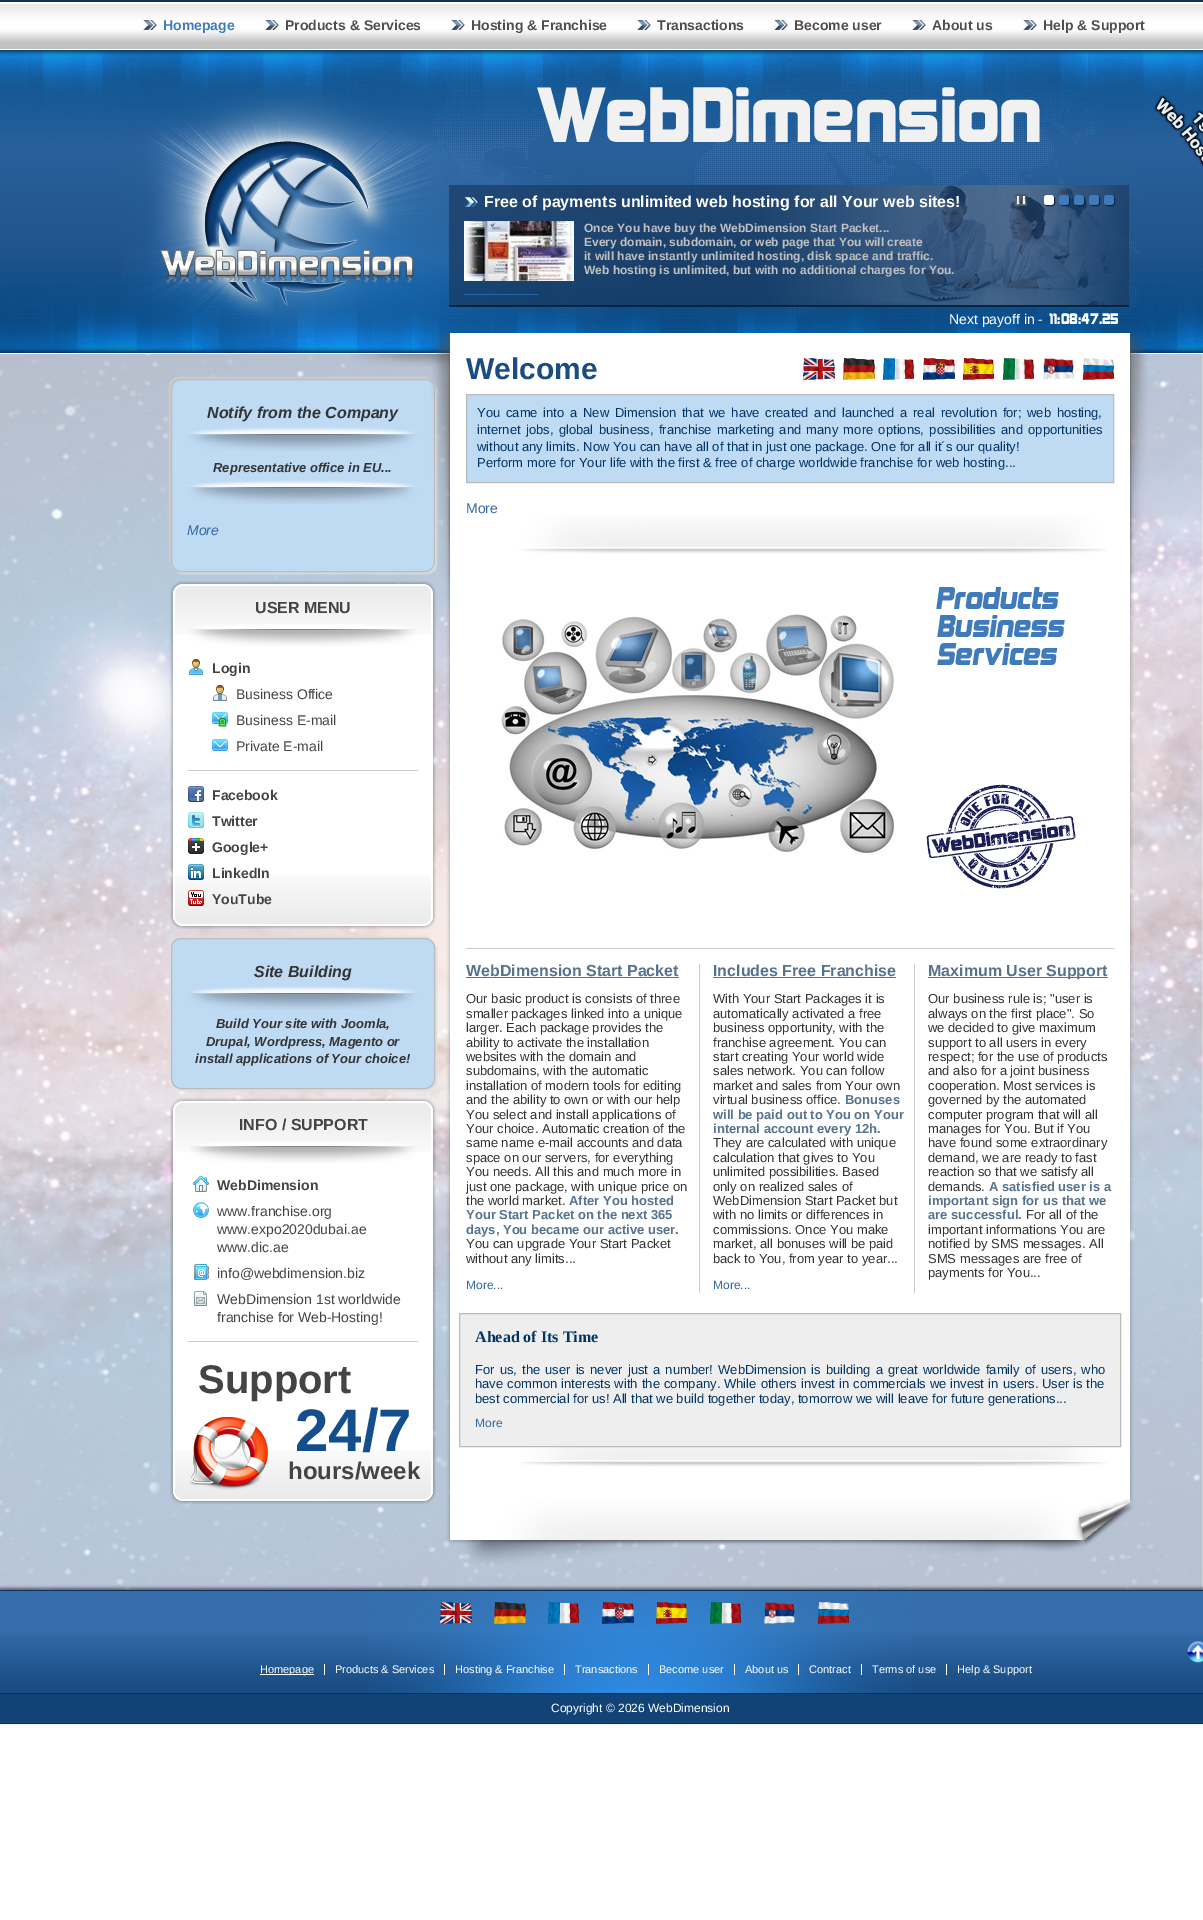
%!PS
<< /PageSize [1203 1920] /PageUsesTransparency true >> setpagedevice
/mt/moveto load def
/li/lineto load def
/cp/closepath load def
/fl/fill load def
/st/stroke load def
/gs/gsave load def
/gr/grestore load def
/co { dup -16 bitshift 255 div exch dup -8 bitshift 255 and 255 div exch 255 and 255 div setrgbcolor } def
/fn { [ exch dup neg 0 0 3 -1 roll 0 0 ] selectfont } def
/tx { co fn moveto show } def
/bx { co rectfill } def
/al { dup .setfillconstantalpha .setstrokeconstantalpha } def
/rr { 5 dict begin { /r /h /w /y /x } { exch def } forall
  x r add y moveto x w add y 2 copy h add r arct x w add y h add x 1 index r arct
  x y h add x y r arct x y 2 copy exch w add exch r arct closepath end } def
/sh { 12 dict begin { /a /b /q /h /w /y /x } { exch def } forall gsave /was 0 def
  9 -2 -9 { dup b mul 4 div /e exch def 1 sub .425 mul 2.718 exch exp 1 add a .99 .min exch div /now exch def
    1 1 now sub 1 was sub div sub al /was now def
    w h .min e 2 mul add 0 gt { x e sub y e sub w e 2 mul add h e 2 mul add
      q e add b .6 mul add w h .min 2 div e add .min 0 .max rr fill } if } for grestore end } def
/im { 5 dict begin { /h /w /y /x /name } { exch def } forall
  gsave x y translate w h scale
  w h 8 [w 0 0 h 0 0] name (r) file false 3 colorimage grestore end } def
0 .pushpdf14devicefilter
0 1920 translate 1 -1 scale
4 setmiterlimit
0 0 1203 1920 16#FFFFFF bx
(media/1.raw) 0 0 1203 49 im
(media/2.raw) 143 20 14 10 im
(media/3.raw) 265 20 14 10 im
(media/3.raw) 451 20 14 10 im
(media/3.raw) 637 20 14 10 im
(media/2.raw) 774 20 14 10 im
(media/2.raw) 912 20 14 10 im
(media/2.raw) 1023 20 14 10 im
(media/4.raw) 0 50 1203 303 im
(media/5.raw) 121 50 1018 303 im
(media/6.raw) 0 50 1203 97 im
(media/7.raw) 0 256 1203 97 im
(media/8.raw) 449 185 680 120 im
449 305 680 2 16#0A233E bx
(media/9.raw) 464 197 14 10 im
(media/10.raw) 464 221 110 60 im
(media/11.raw) 1015 194 12 12 im
1045 196 10 10 3 .5 1 sh
16#FFFFFF co
1044 195 10 10 3 rr fl
16#0A233E co
1060 196 10 10 3 .5 1 sh
16#3F7BBB co
1059 195 10 10 3 rr fl
16#0A233E co
1075 196 10 10 3 .5 1 sh
16#3F7BBB co
1074 195 10 10 3 rr fl
16#0A233E co
1090 196 10 10 3 .5 1 sh
16#3F7BBB co
1089 195 10 10 3 rr fl
16#0A233E co
1105 196 10 10 3 .5 1 sh
16#3F7BBB co
1104 195 10 10 3 rr fl
464 294 74 1 16#2367AE bx
(media/12.raw) 1154 95 49 73 im
(media/13.raw) 160 140 255 165 im
(media/14.raw) 0 354 1203 1236 im
(media/15.raw) 350 354 100 13 im
16#CCCCCC co
169 377 264 193 10 1 1 sh
16#DDDDDD co
173 381 264 193 10 1 1 sh
16#BFDAF3 co
171.5 379.5 263 192 9.5 rr gs fl gr
16#BBBBBB co
st
(media/18.raw) 170 592 266 326 im
(media/19.raw) 170 581 266 54 im
(media/16.raw) 431 331 717 289 im
(media/17.raw) 187 427 231 24 im
(media/17.raw) 187 480 231 24 im
(media/20.raw) 189 624 228 22 im
(media/21.raw) 189 659 14 16 im
(media/22.raw) 213 685 14 16 im
(media/23.raw) 212 712 16 15 im
(media/24.raw) 212 739 16 12 im
188 770 230 1 16#CCCCCC bx
(media/25.raw) 188 786 16 16 im
(media/26.raw) 188 812 16 16 im
(media/27.raw) 188 838 16 16 im
(media/30.raw) 170 875 266 54 im
(media/28.raw) 188 864 16 16 im
(media/29.raw) 188 890 16 16 im
16#DDDDDD co
169 936 264 151 10 1 1 sh
173 940 264 151 10 1 1 sh
16#BFDAF3 co
171.5 938.5 263 150 9.5 rr gs fl gr
16#BBBBBB co
st
(media/17.raw) 187 986 231 24 im
(media/31.raw) 170 1109 266 384 im
(media/32.raw) 170 1098 266 54 im
(media/20.raw) 189 1141 228 22 im
(media/33.raw) 193 1176 16 16 im
(media/34.raw) 193 1202 16 16 im
(media/35.raw) 194 1264 15 16 im
(media/36.raw) 194 1291 13 15 im
188 1341 230 1 16#CCCCCC bx
(media/38.raw) 170 1450 266 54 im
(media/37.raw) 189 1417 79 73 im
(media/39.raw) 446 333 688 1164 im
(media/40.raw) 519 515 588 39 im
(media/41.raw) 803 358 32 22 im
(media/42.raw) 843 358 32 22 im
(media/43.raw) 883 358 31 22 im
(media/44.raw) 923 358 32 22 im
(media/45.raw) 963 358 31 22 im
(media/46.raw) 1003 358 31 22 im
(media/47.raw) 1043 358 31 22 im
(media/48.raw) 1083 358 31 22 im
16#BFDAF3 co
466.5 394.5 mt 1113.5 394.5 li 1113.5 482.5 li 466.5 482.5 li cp gs fl gr
16#BBBBBB co
st
(media/49.raw) 519 1447 588 20 im
(media/50.raw) 936 584 128 28 im
(media/51.raw) 497 614 398 240 im
(media/52.raw) 936 612 129 28 im
(media/53.raw) 936 640 127 28 im
(media/54.raw) 926 784 150 105 im
466 948 648 1 16#CCCCCC bx
699 964 1 329 16#CCCCCC bx
466 977 213 1 16#55728E bx
914 964 1 329 16#CCCCCC bx
713 977 183 1 16#55728E bx
928 977 180 1 16#55728E bx
16#EEEEEE co
459.5 1313.5 mt 1120.5 1313.5 li 1120.5 1446.5 li 459.5 1446.5 li cp gs fl gr
16#BBBBBB co
st
(media/55.raw) 446 1497 688 68 im
16#000000 co
0 1588 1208 134 0 1.5 .5 sh
0 1591 1203 42 16#356EAB bx
(media/56.raw) 0 1633 1203 90 im
0 1590 1203 1 16#0D3259 bx
0 1723 1203 1 16#0D3259 bx
(media/57.raw) 369 1591 543 102 im
(media/58.raw) 440 1602 32 22 im
(media/59.raw) 494 1602 32 22 im
(media/60.raw) 548 1602 31 22 im
(media/61.raw) 602 1602 32 22 im
(media/62.raw) 656 1602 31 22 im
(media/63.raw) 710 1602 31 22 im
(media/64.raw) 764 1602 31 22 im
(media/65.raw) 818 1602 31 22 im
(media/66.raw) 1187 1641 16 22 im
324 1664 1 11 16#FFFFFF bx
260 1674 54 1 16#FFFFFF bx
444 1664 1 11 16#FFFFFF bx
564 1664 1 11 16#FFFFFF bx
648 1664 1 11 16#FFFFFF bx
734 1664 1 11 16#FFFFFF bx
798 1664 1 11 16#FFFFFF bx
861 1664 1 11 16#FFFFFF bx
946 1664 1 11 16#FFFFFF bx
(Homepage) 163 30 /LiberationSans-Bold 14 16#3F7BBB tx
(Products & Services) 285 30 /LiberationSans-Bold 14 16#4E4E4E tx
(Hosting & Franchise) 471 30 /LiberationSans-Bold 14 16#4E4E4E tx
(Transactions) 657 30 /LiberationSans-Bold 14 16#4E4E4E tx
(Become user) 794 30 /LiberationSans-Bold 14 16#4E4E4E tx
(About us) 932 30 /LiberationSans-Bold 14 16#4E4E4E tx
(Help & Support) 1043 30 /LiberationSans-Bold 14 16#4E4E4E tx
(WebDimension) 537 142 /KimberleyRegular-Regular 72 16#F1F1F1 tx
(Free of payments unlimited web hosting for all Your web sites!) 484 207 /LiberationSans-Bold 16 16#FFFFFF tx
(Once You have buy the WebDimension Start Packet...) 584 232 /LiberationSans-Bold 12 16#C0C0C0 tx
(Every domain, subdomain, or web page that You will create) 584 246 /LiberationSans-Bold 12 16#C0C0C0 tx
(it will have instantly unlimited hosting, disk space and traffic.) 584 260 /LiberationSans-Bold 12 16#C0C0C0 tx
(Web hosting is unlimited, but with no additional charges for You.) 584 274 /LiberationSans-Bold 12 16#C0C0C0 tx
(Next payoff in -) 949 324 /LiberationSans-Regular 14 16#FFFFFF tx
(11:08:47.25) 1049 324 /KimberleyRegular-Regular 14 16#FFFFFF tx
(Notify from the Company) 207 418 /LiberationSans-BoldItalic 16 16#333333 tx
(Representative office in EU...) 213 472 /LiberationSans-BoldItalic 13 16#333333 tx
(More) 187 535 /LiberationSans-Italic 14 16#3369A3 tx
(USER MENU) 255 613 /LiberationSans-Bold 16 16#444444 tx
(Login) 212 673 /LiberationSans-Bold 14 16#444444 tx
(Business Office) 236 699 /LiberationSans-Regular 14 16#444444 tx
(Business E-mail) 236 725 /LiberationSans-Regular 14 16#444444 tx
(Private E-mail) 236 751 /LiberationSans-Regular 14 16#444444 tx
(Facebook) 212 800 /LiberationSans-Bold 14 16#444444 tx
(Twitter) 212 826 /LiberationSans-Bold 14 16#444444 tx
(Google+) 212 852 /LiberationSans-Bold 14 16#444444 tx
(LinkedIn) 212 878 /LiberationSans-Bold 14 16#444444 tx
(YouTube) 212 904 /LiberationSans-Bold 14 16#444444 tx
(Site Building) 254 977 /LiberationSans-BoldItalic 16 16#333333 tx
(Build Your site with Joomla,) 216 1028 /LiberationSans-BoldItalic 13 16#333333 tx
(Drupal, Wordpress, Magento or) 206 1046 /LiberationSans-BoldItalic 13 16#333333 tx
(install applications of Your choice!) 195 1063 /LiberationSans-BoldItalic 13 16#333333 tx
(INFO / SUPPORT) 239 1130 /LiberationSans-Bold 16 16#444444 tx
(WebDimension) 217 1190 /LiberationSans-Bold 14 16#444444 tx
(www.franchise.org) 217 1216 /LiberationSans-Regular 14 16#444444 tx
(www.expo2020dubai.ae) 217 1234 /LiberationSans-Regular 14 16#444444 tx
(www.dic.ae) 217 1252 /LiberationSans-Regular 14 16#444444 tx
(info@webdimension.biz) 217 1278 /LiberationSans-Regular 14 16#444444 tx
(WebDimension 1st worldwide) 217 1304 /LiberationSans-Regular 14 16#444444 tx
(franchise for Web-Hosting!) 217 1322 /LiberationSans-Regular 14 16#444444 tx
(Support) 198 1393 /LiberationSans-Bold 40 16#444444 tx
(24/7) 295 1451 /LiberationSans-Bold 60 16#144E8C tx
(hours/week) 288 1479 /LiberationSans-Bold 24 16#444444 tx
(Welcome) 466 379 /LiberationSans-Bold 30 16#194C83 tx
/LiberationSans-Regular 13 fn
16#003366 co
477 417 mt 2.1 0 32 (You came into a New Dimension that we have created and launched a real revolution for; web hosting,) widthshow
477 434 mt 1.75 0 32 (internet jobs, global business, franchise marketing and many more options, possibilities and opportunities) widthshow
(without any limits. Now You can have all of that in just one package. One for all it´s our quality!) 477 451 /LiberationSans-Regular 13 16#003366 tx
(Perform more for Your life with the first & free of charge worldwide franchise for web hosting...) 477 467 /LiberationSans-Regular 13 16#003366 tx
(More) 466 513 /LiberationSans-Regular 14 16#3369A3 tx
(WebDimension Start Packet) 466 976 /LiberationSans-Bold 16 16#55728E tx
(Our basic product is consists of three) 466 1003 /LiberationSans-Regular 13 16#333333 tx
(smaller packages linked into a unique) 466 1018 /LiberationSans-Regular 13 16#333333 tx
(larger. Each package provides the) 466 1032 /LiberationSans-Regular 13 16#333333 tx
(ability to activate the installation) 466 1047 /LiberationSans-Regular 13 16#333333 tx
(websites with the domain and) 466 1061 /LiberationSans-Regular 13 16#333333 tx
(subdomains, with the automatic) 466 1075 /LiberationSans-Regular 13 16#333333 tx
(installation of modern tools for editing) 466 1090 /LiberationSans-Regular 13 16#333333 tx
(and the ability to own or with our help) 466 1104 /LiberationSans-Regular 13 16#333333 tx
(You select and install applications of) 466 1119 /LiberationSans-Regular 13 16#333333 tx
(Your choice. Automatic creation of the) 466 1133 /LiberationSans-Regular 13 16#333333 tx
(same name e-mail accounts and data) 466 1147 /LiberationSans-Regular 13 16#333333 tx
(space on our servers, for everything) 466 1162 /LiberationSans-Regular 13 16#333333 tx
(You needs. All this and much more in) 466 1176 /LiberationSans-Regular 13 16#333333 tx
(just one package, with unique price on) 466 1191 /LiberationSans-Regular 13 16#333333 tx
(the world market.) 466 1205 /LiberationSans-Regular 13 16#333333 tx
(After You hosted) 569 1205 /LiberationSans-Bold 13 16#55728E tx
(Your Start Packet on the next 365) 466 1219 /LiberationSans-Bold 13 16#55728E tx
(days, You became our active user.) 466 1234 /LiberationSans-Bold 13 16#55728E tx
(You can upgrade Your Start Packet) 466 1248 /LiberationSans-Regular 13 16#333333 tx
(without any limits...) 466 1263 /LiberationSans-Regular 13 16#333333 tx
(More...) 466 1289 /LiberationSans-Regular 12 16#3369A3 tx
(Includes Free Franchise) 713 976 /LiberationSans-Bold 16 16#55728E tx
(With Your Start Packages it is) 713 1003 /LiberationSans-Regular 13 16#333333 tx
(automatically activated a free) 713 1018 /LiberationSans-Regular 13 16#333333 tx
(business opportunity, with the) 713 1032 /LiberationSans-Regular 13 16#333333 tx
(franchise agreement. You can) 713 1047 /LiberationSans-Regular 13 16#333333 tx
(start creating Your world wide) 713 1061 /LiberationSans-Regular 13 16#333333 tx
(sales network. You can follow) 713 1075 /LiberationSans-Regular 13 16#333333 tx
(market and sales from Your own) 713 1090 /LiberationSans-Regular 13 16#333333 tx
(virtual business office.) 713 1104 /LiberationSans-Regular 13 16#333333 tx
(Bonuses) 845 1104 /LiberationSans-Bold 13 16#55728E tx
(will be paid out to You on Your) 713 1119 /LiberationSans-Bold 13 16#55728E tx
(internal account every 12h.) 713 1133 /LiberationSans-Bold 13 16#55728E tx
(They are calculated with unique) 713 1147 /LiberationSans-Regular 13 16#333333 tx
(calculation that gives to You) 713 1162 /LiberationSans-Regular 13 16#333333 tx
(unlimited possibilities. Based) 713 1176 /LiberationSans-Regular 13 16#333333 tx
(only on realized sales of) 713 1191 /LiberationSans-Regular 13 16#333333 tx
(WebDimension Start Packet but) 713 1205 /LiberationSans-Regular 13 16#333333 tx
(with no limits or differences in) 713 1219 /LiberationSans-Regular 13 16#333333 tx
(commissions. Once You make) 713 1234 /LiberationSans-Regular 13 16#333333 tx
(market, all bonuses will be paid) 713 1248 /LiberationSans-Regular 13 16#333333 tx
(back to You, from year to year...) 713 1263 /LiberationSans-Regular 13 16#333333 tx
(More...) 713 1289 /LiberationSans-Regular 12 16#3369A3 tx
(Maximum User Support) 928 976 /LiberationSans-Bold 16 16#55728E tx
(Our business rule is; "user is) 928 1003 /LiberationSans-Regular 13 16#333333 tx
(always on the first place". So) 928 1018 /LiberationSans-Regular 13 16#333333 tx
(we decided to give maximum) 928 1032 /LiberationSans-Regular 13 16#333333 tx
(support to all users in every) 928 1047 /LiberationSans-Regular 13 16#333333 tx
(respect; for the use of products) 928 1061 /LiberationSans-Regular 13 16#333333 tx
(and also for a joint business) 928 1075 /LiberationSans-Regular 13 16#333333 tx
(cooperation. Most services is) 928 1090 /LiberationSans-Regular 13 16#333333 tx
(governed by the automated) 928 1104 /LiberationSans-Regular 13 16#333333 tx
(computer program that will all) 928 1119 /LiberationSans-Regular 13 16#333333 tx
(manages for You. But if You) 928 1133 /LiberationSans-Regular 13 16#333333 tx
(have found some extraordinary) 928 1147 /LiberationSans-Regular 13 16#333333 tx
(demand, we are ready to fast) 928 1162 /LiberationSans-Regular 13 16#333333 tx
(reaction so that we satisfy all) 928 1176 /LiberationSans-Regular 13 16#333333 tx
(demands.) 928 1191 /LiberationSans-Regular 13 16#333333 tx
(A satisfied user is a) 989 1191 /LiberationSans-Bold 13 16#55728E tx
(important sign for us that we) 928 1205 /LiberationSans-Bold 13 16#55728E tx
(are successful.) 928 1219 /LiberationSans-Bold 13 16#55728E tx
(For all of the) 1026 1219 /LiberationSans-Regular 13 16#333333 tx
(important informations You are) 928 1234 /LiberationSans-Regular 13 16#333333 tx
(notified by SMS messages. All) 928 1248 /LiberationSans-Regular 13 16#333333 tx
(SMS messages are free of) 928 1263 /LiberationSans-Regular 13 16#333333 tx
(payments for You...) 928 1277 /LiberationSans-Regular 13 16#333333 tx
(Ahead of Its Time) 475 1342 /LiberationSerif-Bold 16 16#003366 tx
/LiberationSans-Regular 13 fn
475 1374 mt 1.5 0 32 (For us, the user is never just a number! WebDimension is building a great worldwide family of users, who) widthshow
475 1388 mt .5 0 32 (have common interests with the company.) widthshow
724 1388 mt .5 0 32 (While others) widthshow
801 1388 mt .5 0 32 (invest in) widthshow
(commercials) 853 1388 /LiberationSans-Regular 13 16#003366 tx
(we) 930 1388 /LiberationSans-Regular 13 16#003366 tx
950 1388 mt .5 0 32 (invest in) widthshow
(users.) 1003 1388 /LiberationSans-Regular 13 16#003366 tx
(User) 1042 1388 /LiberationSans-Regular 13 16#003366 tx
(is the) 1073 1388 /LiberationSans-Regular 13 16#003366 tx
(best commercial for us! All that we build together today, tomorrow we will leave for future generations...) 475 1403 /LiberationSans-Regular 13 16#003366 tx
(More) 475 1427 /LiberationSans-Regular 12 16#3369A3 tx
(Homepage) 260 1673 /LiberationSans-Regular 11 16#FFFFFF tx
(Products & Services) 335 1673 /LiberationSans-Regular 11 16#FFFFFF tx
(Hosting & Franchise) 455 1673 /LiberationSans-Regular 11 16#FFFFFF tx
(Transactions) 575 1673 /LiberationSans-Regular 11 16#FFFFFF tx
(Become user) 659 1673 /LiberationSans-Regular 11 16#FFFFFF tx
(About us) 745 1673 /LiberationSans-Regular 11 16#FFFFFF tx
(Contract) 809 1673 /LiberationSans-Regular 11 16#FFFFFF tx
(Terms of use) 872 1673 /LiberationSans-Regular 11 16#FFFFFF tx
(Help & Support) 957 1673 /LiberationSans-Regular 11 16#FFFFFF tx
(Copyright © 2026 WebDimension) 551 1712 /LiberationSans-Regular 12 16#FFFFFF tx
.poppdf14devicefilter showpage
